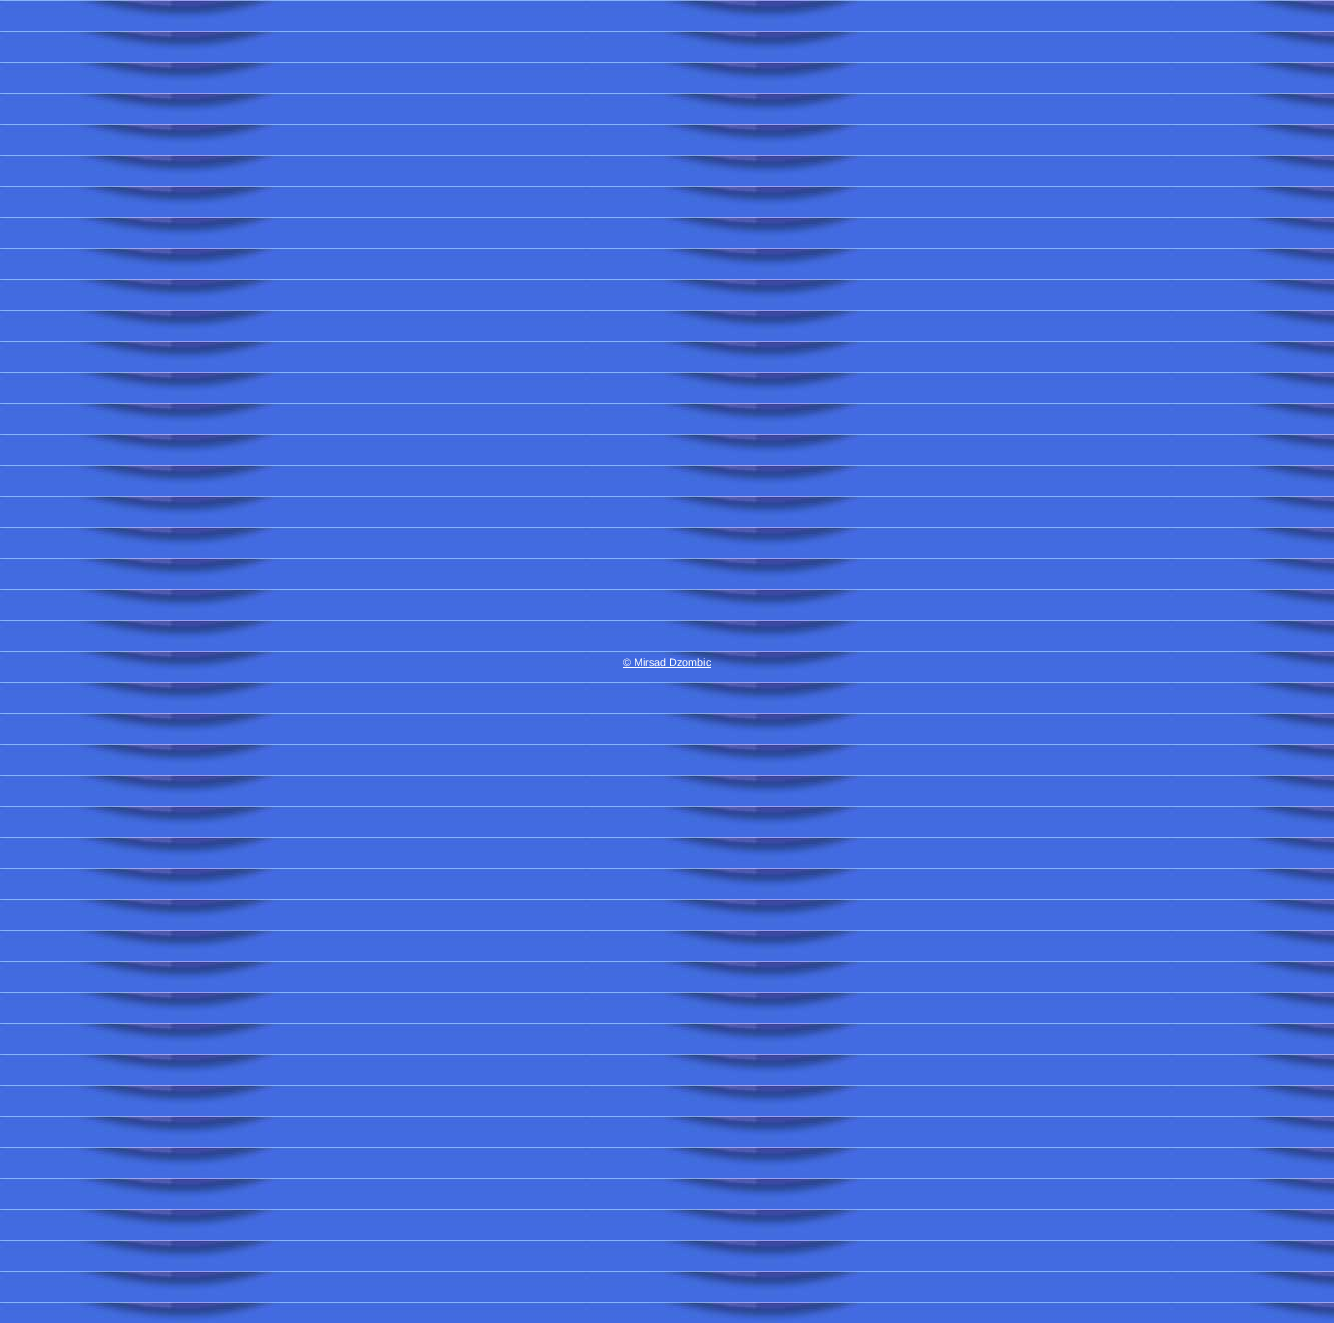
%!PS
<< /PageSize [1334 1323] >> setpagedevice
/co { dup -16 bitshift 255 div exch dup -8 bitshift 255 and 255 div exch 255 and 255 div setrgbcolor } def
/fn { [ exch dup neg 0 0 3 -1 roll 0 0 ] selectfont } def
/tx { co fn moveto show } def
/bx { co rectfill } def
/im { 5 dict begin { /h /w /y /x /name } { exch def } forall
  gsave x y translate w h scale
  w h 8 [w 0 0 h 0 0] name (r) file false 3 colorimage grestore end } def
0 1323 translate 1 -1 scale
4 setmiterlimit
0 0 1334 1323 16#FFFFFF bx
(media/1.raw) 0 0 1334 1323 im
623 667 88 1 16#FFFFFF bx
(© Mirsad Dzombic) 623 666 /LiberationSans-Regular 10.75 16#FFFFFF tx
showpage
